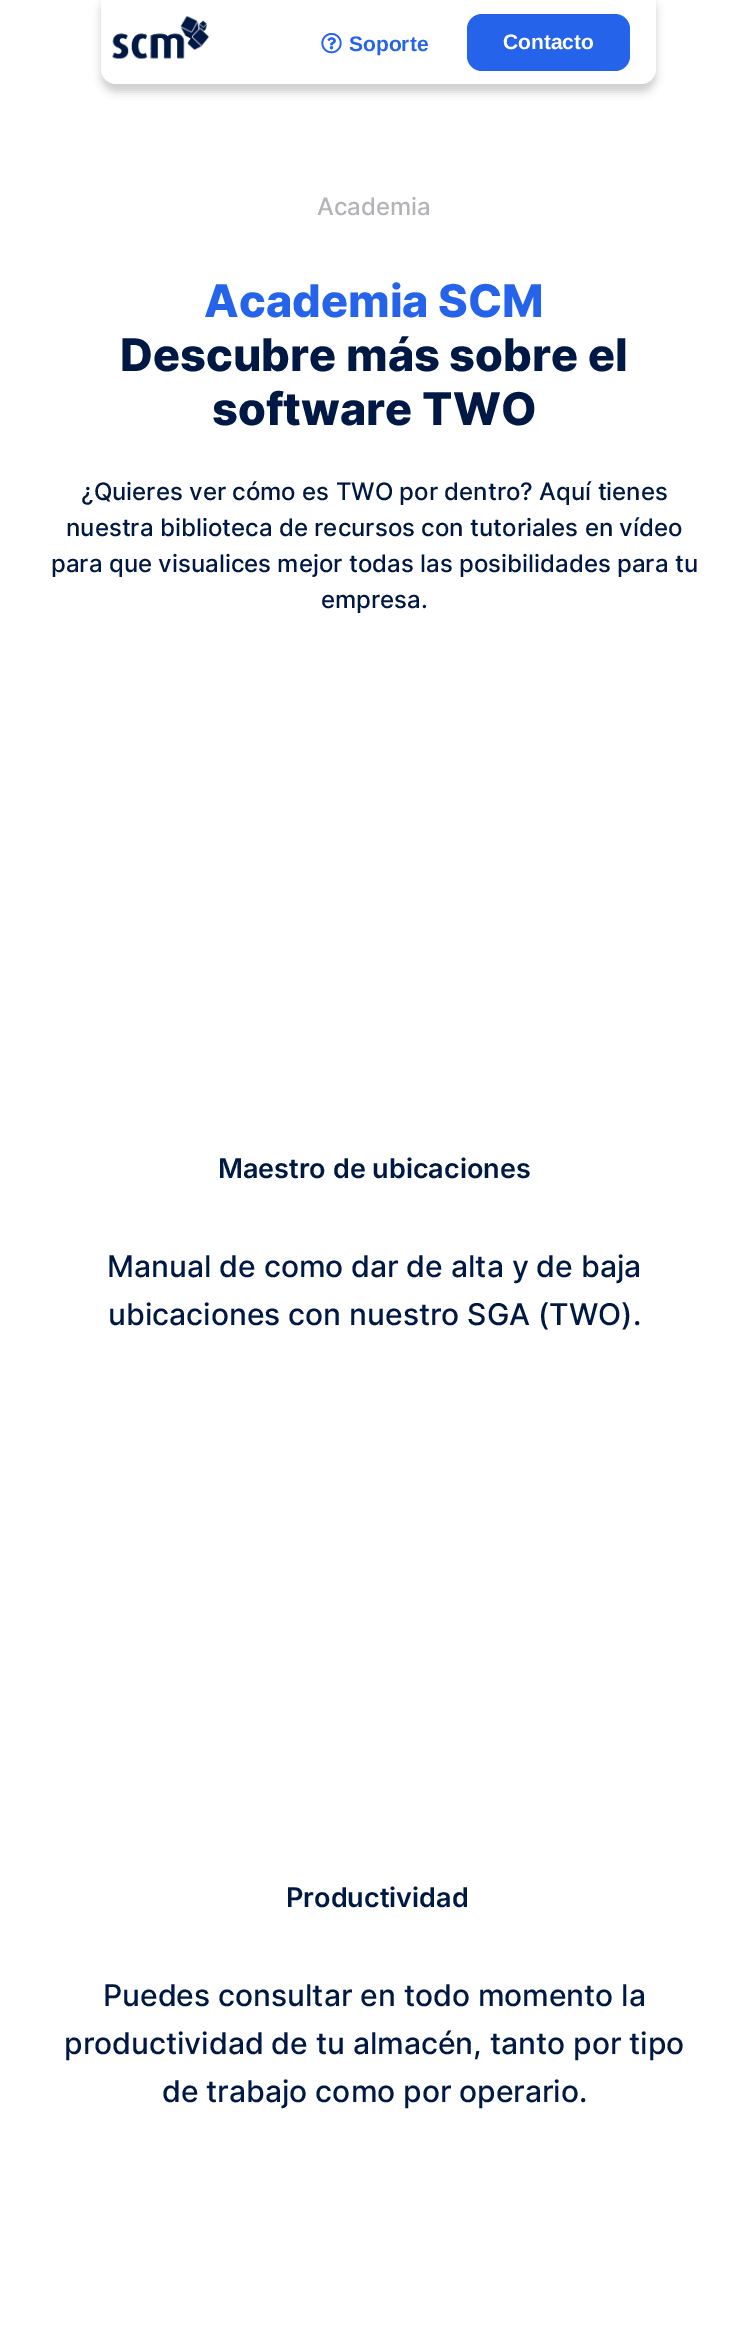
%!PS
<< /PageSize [748 2340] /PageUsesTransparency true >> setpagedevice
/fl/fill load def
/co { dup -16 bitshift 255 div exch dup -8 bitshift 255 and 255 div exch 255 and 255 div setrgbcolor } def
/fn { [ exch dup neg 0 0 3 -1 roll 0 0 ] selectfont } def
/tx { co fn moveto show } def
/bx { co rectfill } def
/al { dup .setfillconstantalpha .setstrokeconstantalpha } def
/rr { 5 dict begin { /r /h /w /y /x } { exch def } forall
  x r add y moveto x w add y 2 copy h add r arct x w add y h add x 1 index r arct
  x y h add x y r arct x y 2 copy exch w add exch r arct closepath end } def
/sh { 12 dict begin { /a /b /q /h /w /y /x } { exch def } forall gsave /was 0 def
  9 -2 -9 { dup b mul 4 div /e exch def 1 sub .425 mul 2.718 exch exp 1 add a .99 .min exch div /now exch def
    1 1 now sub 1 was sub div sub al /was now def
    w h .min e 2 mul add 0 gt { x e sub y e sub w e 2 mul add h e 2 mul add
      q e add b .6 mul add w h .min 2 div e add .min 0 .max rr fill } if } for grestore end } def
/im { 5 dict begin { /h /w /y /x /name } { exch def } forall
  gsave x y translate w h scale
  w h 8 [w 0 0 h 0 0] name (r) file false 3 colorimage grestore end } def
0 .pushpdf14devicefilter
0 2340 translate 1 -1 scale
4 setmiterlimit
0 0 748 2340 16#FFFFFF bx
16#000000 co
101 -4 555 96 15 4 .19 sh
16#FFFFFF co
101 -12 555 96 15 rr fl
(media/1.raw) 112 16 97 43 im
(media/2.raw) 321 33 21 21 im
16#2563EA co
467 14 163 57 15 rr fl
(Soporte) 349 51 /LiberationSans-Bold 21 16#2563EA tx
(Contacto) 503 49 /LiberationSans-Bold 21 16#FFFFFF tx
(Academia) 317 215 /Inter-Medium 24 16#B2B4B8 tx
(Academia SCM) 204 317 /Inter-ExtraBold 45 16#2563EA tx
(Descubre más sobre el) 120 371 /Inter-ExtraBold 45 16#001944 tx
(software TWO) 212 425 /Inter-ExtraBold 45 16#001944 tx
(¿Quieres ver cómo es TWO por dentro? Aquí tienes) 81 500 /Inter-Medium 24 16#001944 tx
(nuestra biblioteca de recursos con tutoriales en vídeo) 66 536 /Inter-Medium 24 16#001944 tx
(para que visualices mejor todas las posibilidades para tu) 51 572 /Inter-Medium 24 16#001944 tx
(empresa.) 321 608 /Inter-Medium 24 16#001944 tx
(Maestro de ubicaciones) 218 1178 /Inter-SemiBold 27 16#001944 tx
(Manual de como dar de alta y de baja) 107 1277 /Inter-Medium 30 16#001944 tx
(ubicaciones con nuestro SGA \(TWO\).) 108 1325 /Inter-Medium 30 16#001944 tx
(Productividad) 286 1907 /Inter-SemiBold 27 16#001944 tx
(Puedes consultar en todo momento la) 103 2006 /Inter-Medium 30 16#001944 tx
(productividad de tu almacén, tanto por tipo) 64 2054 /Inter-Medium 30 16#001944 tx
(de trabajo como por operario.) 162 2102 /Inter-Medium 30 16#001944 tx
.poppdf14devicefilter showpage
